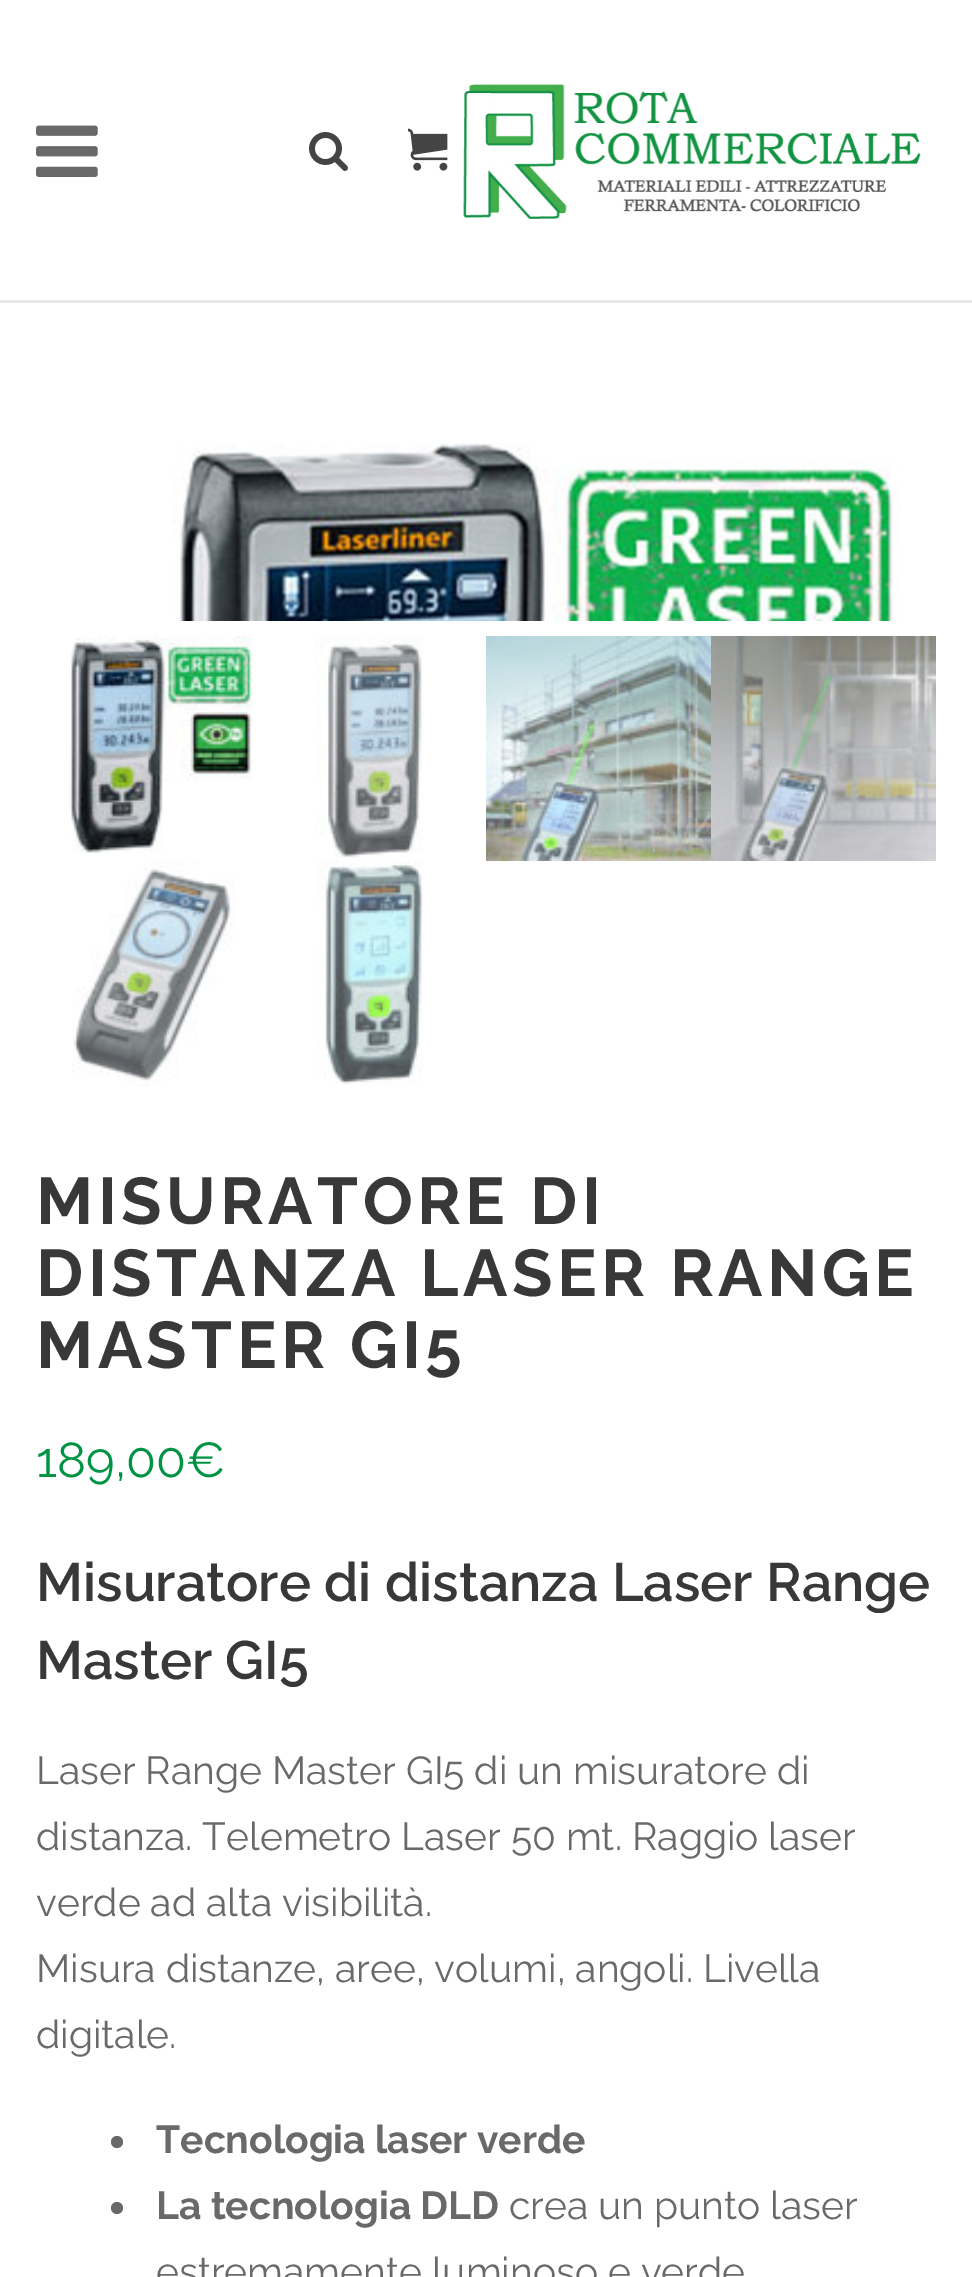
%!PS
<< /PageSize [972 2277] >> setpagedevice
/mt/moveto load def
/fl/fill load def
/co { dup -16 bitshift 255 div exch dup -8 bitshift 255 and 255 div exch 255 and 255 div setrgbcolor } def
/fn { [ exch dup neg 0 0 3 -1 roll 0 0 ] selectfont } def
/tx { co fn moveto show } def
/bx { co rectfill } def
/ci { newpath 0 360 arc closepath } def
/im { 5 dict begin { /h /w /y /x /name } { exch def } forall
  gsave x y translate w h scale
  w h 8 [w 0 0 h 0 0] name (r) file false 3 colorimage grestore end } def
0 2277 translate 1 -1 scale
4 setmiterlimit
0 0 972 2277 16#FFFFFF bx
0 300 972 3 16#E7E7E7 bx
(media/1.raw) 36 125 62 52 im
(media/2.raw) 309 132 39 39 im
(media/3.raw) 408 128 40 43 im
(media/4.raw) 463 84 458 135 im
(media/5.raw) 173 443 727 178 im
(media/6.raw) 69 636 184 217 im
(media/7.raw) 315 636 108 225 im
(media/8.raw) 486 636 225 225 im
(media/9.raw) 711 636 225 225 im
(media/10.raw) 72 861 162 225 im
(media/11.raw) 316 861 108 225 im
16#696969 co
117 2142 6 ci fl
117 2208 6 ci fl
/Raleway-Bold 66 fn
16#383838 co
36 1224 mt 4.5 0 (MISURATORE DI) ashow
36 1296 mt 4.5 0 (DISTANZA LASER RANGE) ashow
36 1368 mt 4.5 0 (MASTER GI5) ashow
(189,00€) 36 1477 /Raleway-Regular 49 16#009343 tx
(Misuratore di distanza Laser Range) 36 1601 /Raleway-SemiBold 54 16#383838 tx
(Master GI5) 36 1679 /Raleway-SemiBold 54 16#383838 tx
(Laser Range Master GI5 di un misuratore di) 36 1784 /Raleway-Regular 39 16#696969 tx
(distanza. Telemetro Laser 50 mt. Raggio laser) 36 1850 /Raleway-Regular 39 16#696969 tx
(verde ad alta visibilità.) 36 1916 /Raleway-Regular 39 16#696969 tx
(Misura distanze, aree, volumi, angoli. Livella) 36 1982 /Raleway-Regular 39 16#696969 tx
(digitale.) 36 2048 /Raleway-Regular 39 16#696969 tx
(Tecnologia laser verde) 156 2153 /Raleway-Bold 39 16#696969 tx
(La tecnologia DLD) 156 2219 /Raleway-Bold 39 16#696969 tx
(crea un punto laser) 509 2219 /Raleway-Regular 39 16#696969 tx
(estremamente luminoso e verde) 156 2285 /Raleway-Regular 39 16#696969 tx
showpage
